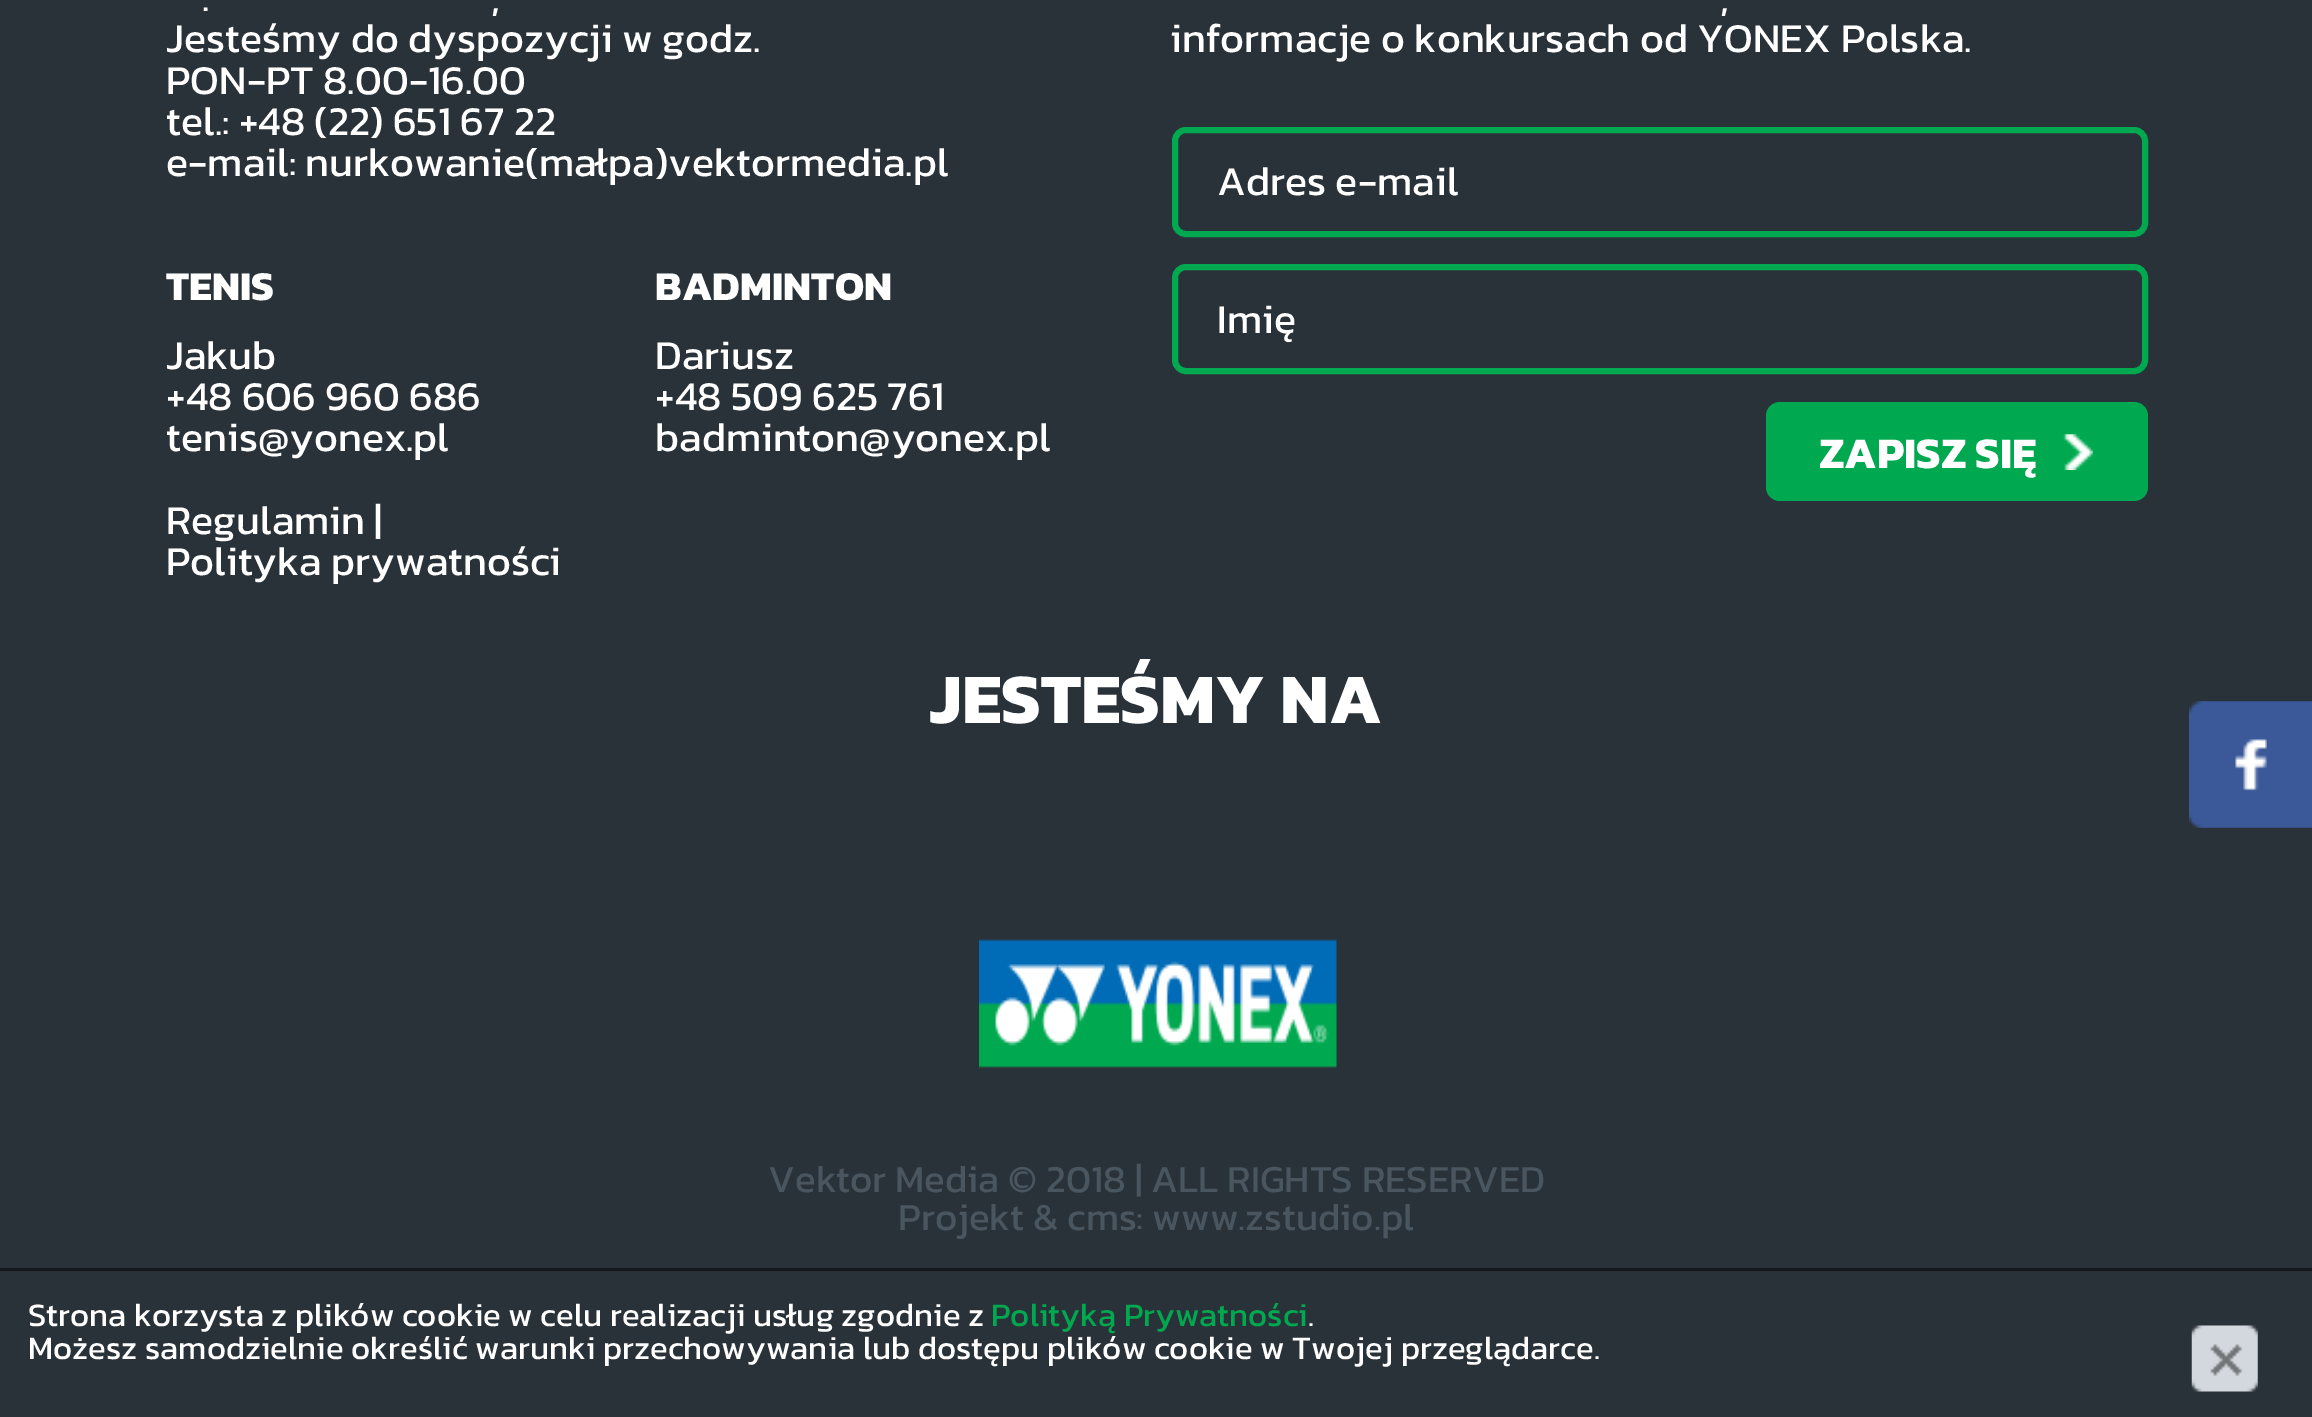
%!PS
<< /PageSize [2312 1417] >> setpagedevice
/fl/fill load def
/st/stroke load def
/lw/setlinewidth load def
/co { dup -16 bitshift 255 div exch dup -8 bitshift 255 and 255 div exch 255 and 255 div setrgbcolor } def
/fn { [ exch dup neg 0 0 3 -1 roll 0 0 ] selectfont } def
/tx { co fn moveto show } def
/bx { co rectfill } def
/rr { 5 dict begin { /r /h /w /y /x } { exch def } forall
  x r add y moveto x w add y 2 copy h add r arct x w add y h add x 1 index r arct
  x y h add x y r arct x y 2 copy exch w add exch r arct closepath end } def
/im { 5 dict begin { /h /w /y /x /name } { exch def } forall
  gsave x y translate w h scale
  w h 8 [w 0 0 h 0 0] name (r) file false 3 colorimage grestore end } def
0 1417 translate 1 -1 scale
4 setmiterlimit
0 0 2312 1417 16#2A3239 bx
16#00A950 co
6 lw
1175 130 970 104 11 rr st
1175 267 970 104 11 rr st
1766 402 382 99 14 rr fl
(media/1.raw) 2062 434 31 36 im
(media/2.raw) 979 939 358 129 im
(media/3.raw) 2189 701 123 127 im
0 1268 2312 3 16#14181C bx
(media/4.raw) 2191 1325 67 67 im
(.) 202 11 /Kanit-Regular 41.25 16#FFFFFF tx
(,) 491 11 /Kanit-Regular 41.25 16#FFFFFF tx
(Jesteśmy do dyspozycji w godz.) 166 52 /Kanit-Regular 41.25 16#FFFFFF tx
(PON-PT 8.00-16.00) 166 94 /Kanit-Regular 41.25 16#FFFFFF tx
(tel.: +48 \(22\) 651 67 22) 166 135 /Kanit-Regular 41.25 16#FFFFFF tx
(e-mail: nurkowanie\(małpa\)vektormedia.pl) 166 176 /Kanit-Regular 41.25 16#FFFFFF tx
(TENIS) 166 300 /Kanit-Bold 41.25 16#FFFFFF tx
(Jakub) 166 369 /Kanit-Regular 41.25 16#FFFFFF tx
(+48 606 960 686) 166 410 /Kanit-Regular 41.25 16#FFFFFF tx
(tenis@yonex.pl) 166 451 /Kanit-Regular 41.25 16#FFFFFF tx
(Regulamin |) 166 534 /Kanit-Regular 41.25 16#FFFFFF tx
(Polityka prywatności) 166 575 /Kanit-Regular 41.25 16#FFFFFF tx
(BADMINTON) 655 300 /Kanit-Bold 41.25 16#FFFFFF tx
(Dariusz) 655 369 /Kanit-Regular 41.25 16#FFFFFF tx
(+48 509 625 761) 655 410 /Kanit-Regular 41.25 16#FFFFFF tx
(badminton@yonex.pl) 655 451 /Kanit-Regular 41.25 16#FFFFFF tx
(,) 1720 11 /Kanit-Regular 41.25 16#FFFFFF tx
(informacje o konkursach od YONEX Polska.) 1170 52 /Kanit-Regular 41.25 16#FFFFFF tx
(Adres e-mail) 1217 195 /Kanit-Regular 41.25 16#FFFFFF tx
(Imię) 1217 333 /Kanit-Regular 41.25 16#FFFFFF tx
(ZAPISZ SIĘ) 1819 468 /Kanit-Bold 44 16#FFFFFF tx
(JESTEŚMY NA) 930 723 /Kanit-Bold 71.5 16#FFFFFF tx
(Vektor Media © 2018 | ALL RIGHTS RESERVED) 768 1192 /Kanit-Regular 38.5 16#4A565F tx
(Projekt & cms: www.zstudio.pl) 898 1230 /Kanit-Regular 38.5 16#4A565F tx
(Strona korzysta z plików cookie w celu realizacji usług zgodnie z) 28 1326 /Kanit-Regular 33 16#FFFFFF tx
(Polityką Prywatności) 991 1326 /Kanit-Regular 33 16#00A950 tx
(.) 1308 1326 /Kanit-Regular 33 16#FFFFFF tx
(Możesz samodzielnie określić warunki przechowywania lub dostępu plików cookie w Twojej przeglądarce.) 28 1359 /Kanit-Regular 33 16#FFFFFF tx
showpage
